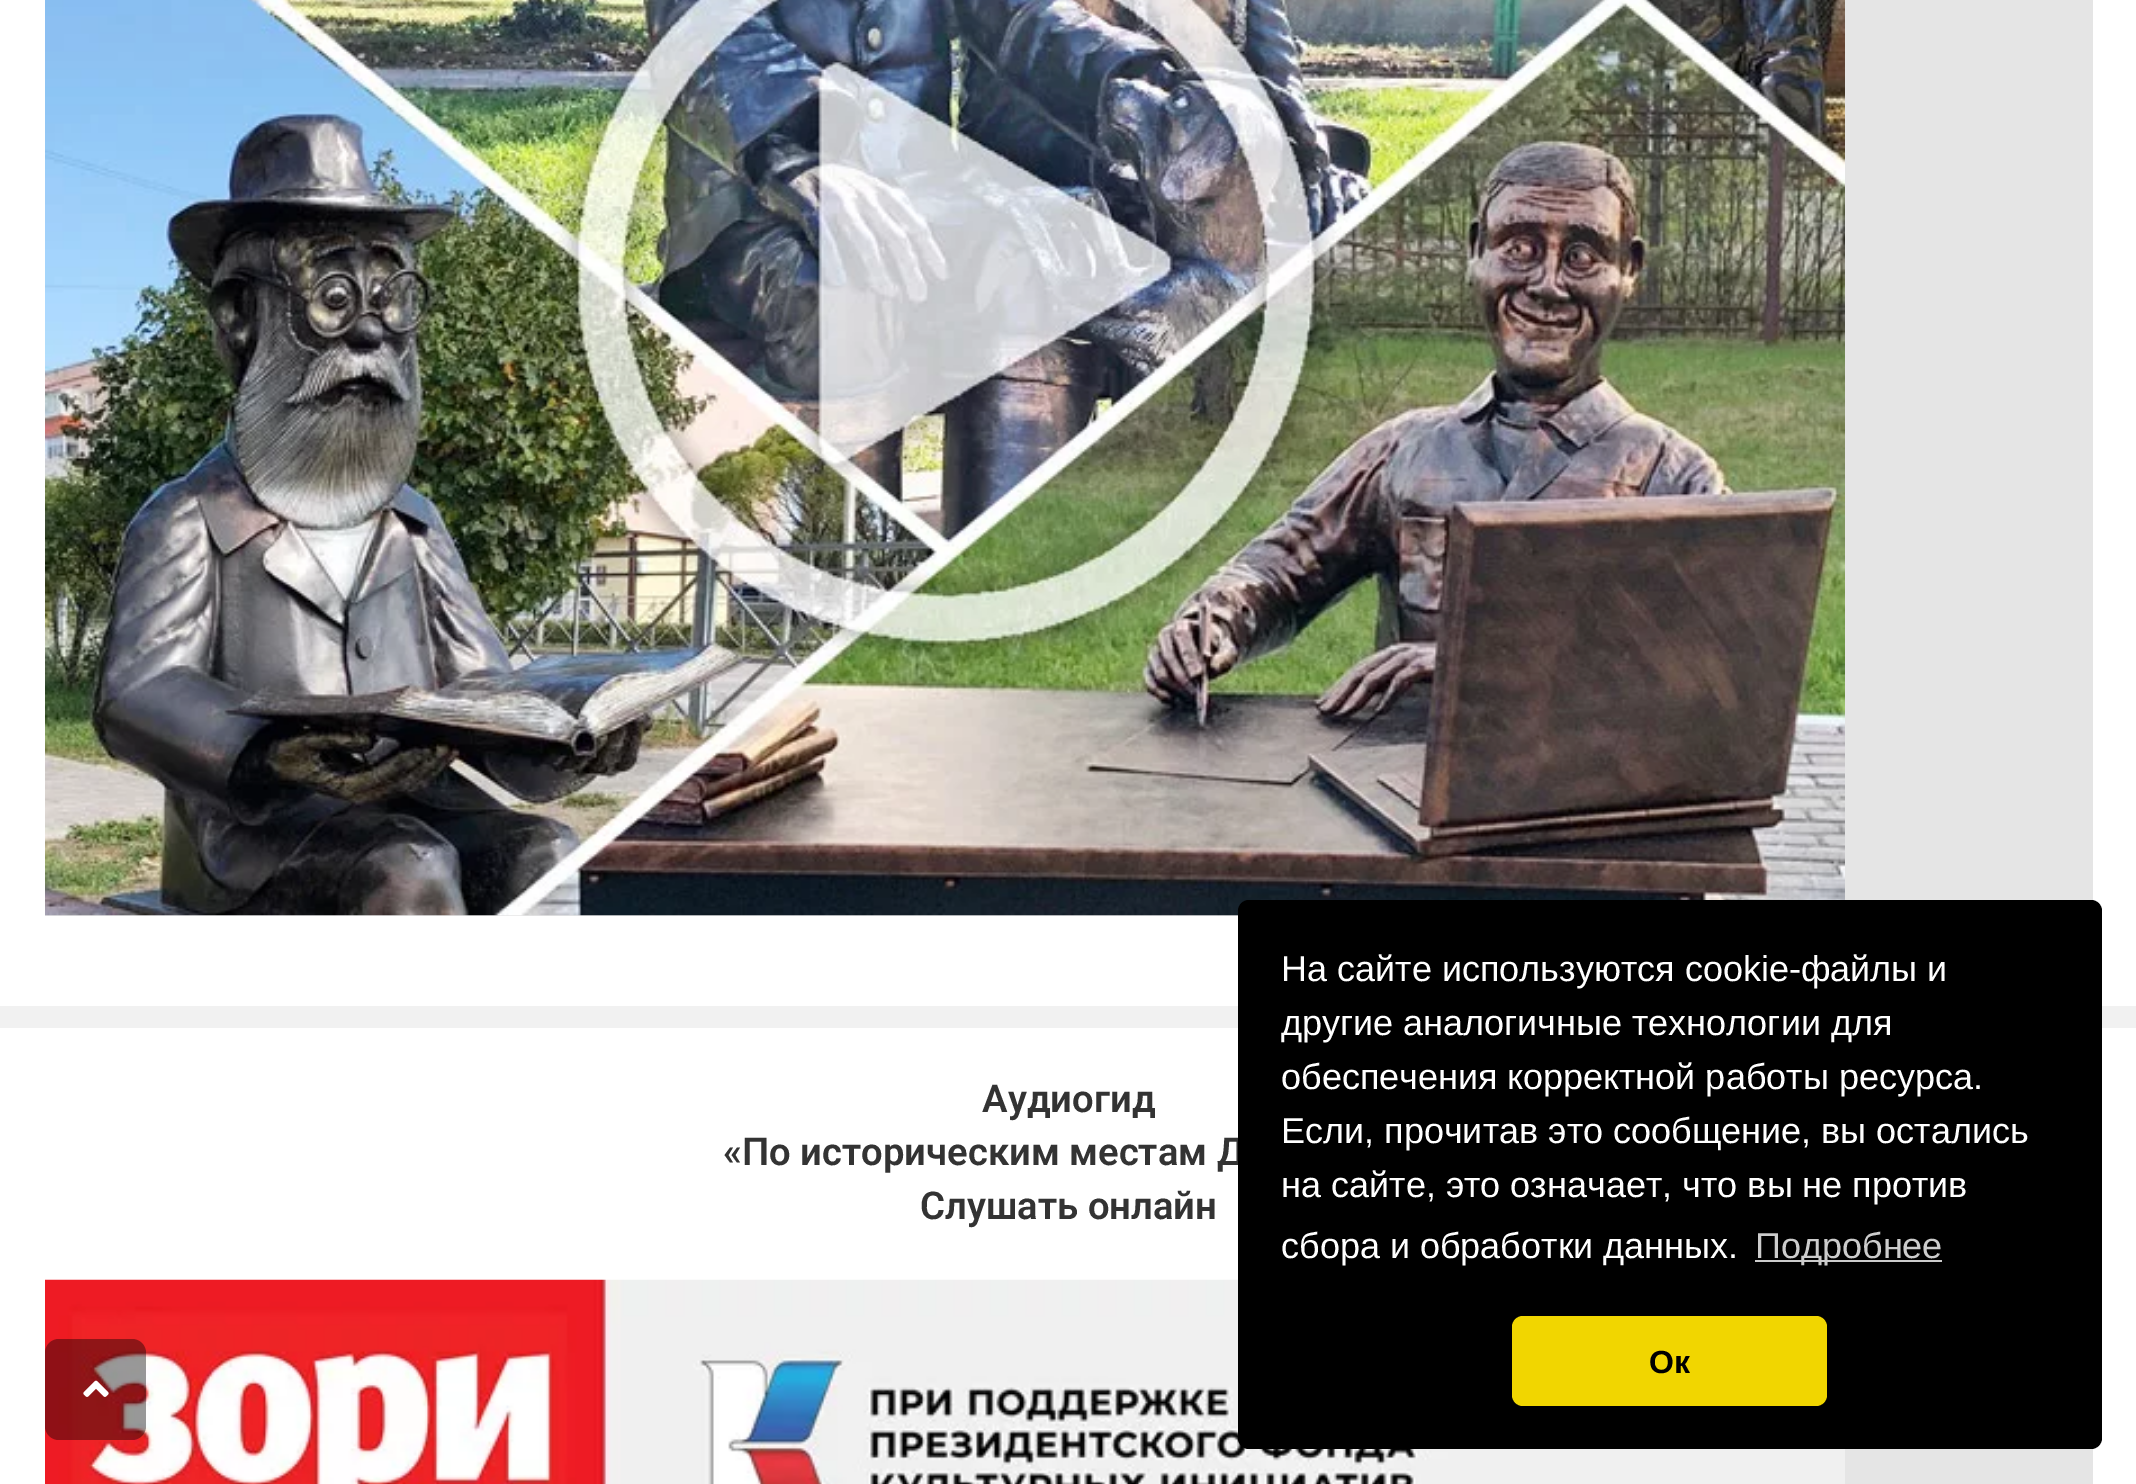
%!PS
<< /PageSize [2136 1484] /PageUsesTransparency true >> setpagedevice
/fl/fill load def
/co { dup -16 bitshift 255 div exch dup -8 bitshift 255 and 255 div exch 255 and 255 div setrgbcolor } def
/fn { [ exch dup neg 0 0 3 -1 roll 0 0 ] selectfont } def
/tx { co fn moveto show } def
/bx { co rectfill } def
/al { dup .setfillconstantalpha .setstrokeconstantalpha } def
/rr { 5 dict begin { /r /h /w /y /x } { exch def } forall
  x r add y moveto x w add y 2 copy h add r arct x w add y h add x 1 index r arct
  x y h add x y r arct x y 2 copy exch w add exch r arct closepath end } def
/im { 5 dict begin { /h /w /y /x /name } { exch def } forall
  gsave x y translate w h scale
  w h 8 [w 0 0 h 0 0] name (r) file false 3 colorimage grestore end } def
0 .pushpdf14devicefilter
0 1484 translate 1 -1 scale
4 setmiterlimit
0 0 2136 1484 16#F1F1F1 bx
0 0 2136 1006 16#FFFFFF bx
45 0 2048 916 16#E5E5E5 bx
(media/1.raw) 45 0 1800 916 im
0 1028 2136 456 16#FFFFFF bx
1845 1448 248 36 16#E5E5E5 bx
(media/2.raw) 45 1279 1800 205 im
0.4 al
16#000000 co
45 1339 101 101 14 rr fl
1 al
(media/3.raw) 83 1380 26 17 im
(Аудиогид) 982 1112 /Roboto-SemiBold 38.25 16#333333 tx
(«По историческим местам Д) 723 1165 /Roboto-SemiBold 38.25 16#333333 tx
(Слушать онлайн) 920 1219 /Roboto-SemiBold 38.25 16#333333 tx
16#000000 co
1238 900 864 549 11 rr fl
(На сайте используются cookie-файлы и) 1281 981 /LiberationSans-Regular 36 16#FFFFFF tx
(другие аналогичные технологии для) 1281 1035 /LiberationSans-Regular 36 16#FFFFFF tx
(обеспечения корректной работы ресурса.) 1281 1089 /LiberationSans-Regular 36 16#FFFFFF tx
(Если, прочитав это сообщение, вы остались) 1281 1143 /LiberationSans-Regular 36 16#FFFFFF tx
(на сайте, это означает, что вы не против) 1281 1197 /LiberationSans-Regular 36 16#FFFFFF tx
(сбора и обработки данных.) 1281 1258 /LiberationSans-Regular 36 16#FFFFFF tx
1755 1260 187 2 16#CCCCCC bx
(Подробнее) 1755 1258 /LiberationSans-Regular 36 16#CCCCCC tx
16#F1D600 co
1512 1316 315 90 11 rr fl
(Ок) 1649 1373 /LiberationSans-Bold 32 16#000000 tx
.poppdf14devicefilter showpage
